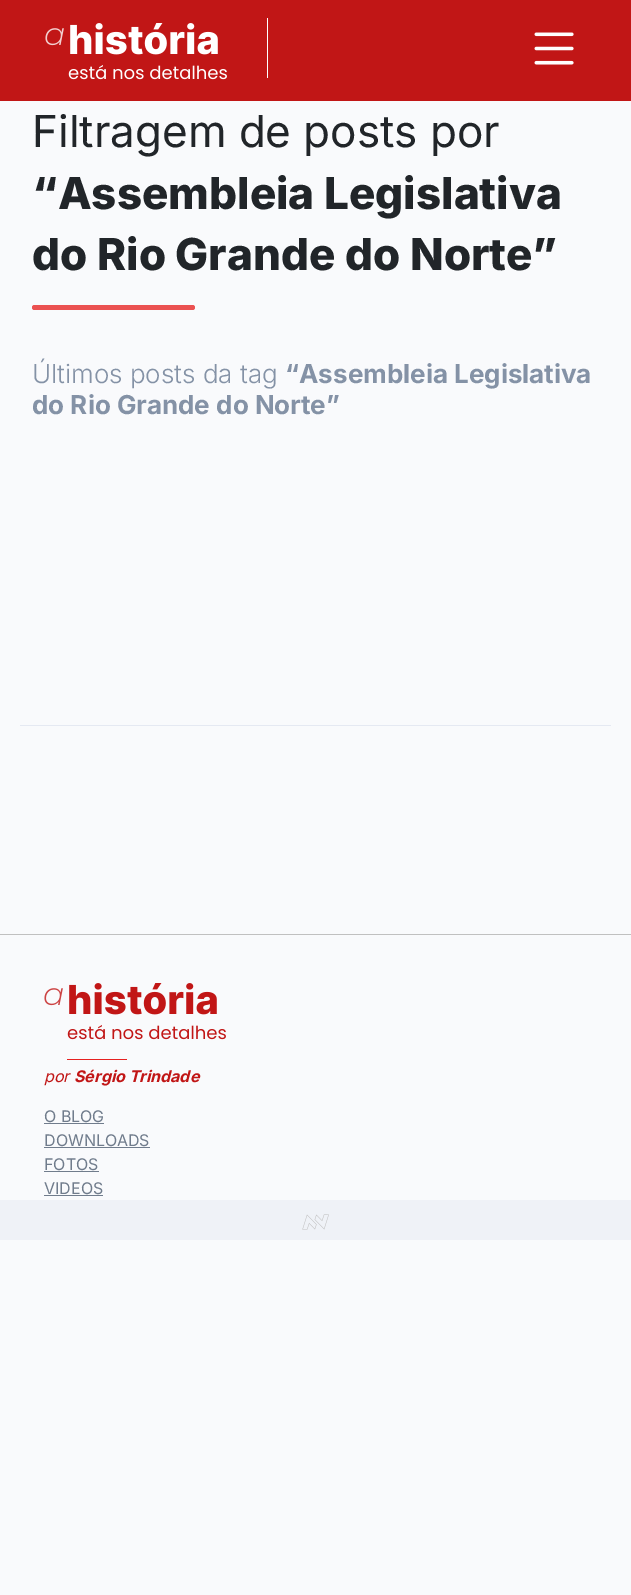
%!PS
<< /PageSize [631 1595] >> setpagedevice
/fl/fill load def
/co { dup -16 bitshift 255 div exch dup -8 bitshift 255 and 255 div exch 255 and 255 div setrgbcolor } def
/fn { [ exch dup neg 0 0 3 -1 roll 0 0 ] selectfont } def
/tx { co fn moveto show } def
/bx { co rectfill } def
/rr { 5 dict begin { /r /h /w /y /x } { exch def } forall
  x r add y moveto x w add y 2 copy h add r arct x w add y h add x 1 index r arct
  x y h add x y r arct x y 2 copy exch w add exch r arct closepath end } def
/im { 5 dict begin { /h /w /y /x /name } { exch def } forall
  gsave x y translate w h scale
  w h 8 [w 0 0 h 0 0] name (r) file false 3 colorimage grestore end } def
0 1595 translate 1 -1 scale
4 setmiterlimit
0 0 631 1595 16#F9FAFC bx
0 0 631 101 16#C11616 bx
(media/1.raw) 45 23 182 57 im
267 18 1 60 16#FFFFFF bx
(media/2.raw) 534 32 40 33 im
16#EB5151 co
32 305 163 5 2.5 rr fl
20 725 591 1 16#E5E9F2 bx
0 934 631 1 16#C0C0C0 bx
(media/3.raw) 44 983 182 57 im
67 1059 60 1 16#E62121 bx
44 1123 60 1 16#707C8C bx
44 1147 106 1 16#707C8C bx
44 1171 55 1 16#707C8C bx
44 1195 59 1 16#707C8C bx
0 1200 631 40 16#EFF2F7 bx
(media/4.raw) 302 1214 27 16 im
(Filtragem de posts por) 32 147 /Inter-Regular 44 16#212529 tx
(“Assembleia Legislativa) 32 209 /Inter-ExtraBold 44 16#212529 tx
(do Rio Grande do Norte”) 32 270 /Inter-ExtraBold 44 16#212529 tx
(Últimos posts da tag) 32 383 /Inter-Light 26 16#8492A6 tx
(“Assembleia Legislativa) 285 383 /Inter-Bold 26 16#8492A6 tx
(do Rio Grande do Norte”) 32 414 /Inter-Bold 26 16#8492A6 tx
(por) 44 1082 /Inter-Italic 16 16#C11616 tx
(Sérgio Trindade) 74 1082 /Inter-BoldItalic 16 16#C11616 tx
(O BLOG) 44 1122 /Inter-Regular 16 16#707C8C tx
(DOWNLOADS) 44 1146 /Inter-Regular 16 16#707C8C tx
(FOTOS) 44 1170 /Inter-Regular 16 16#707C8C tx
(VIDEOS) 44 1194 /Inter-Regular 16 16#707C8C tx
showpage
